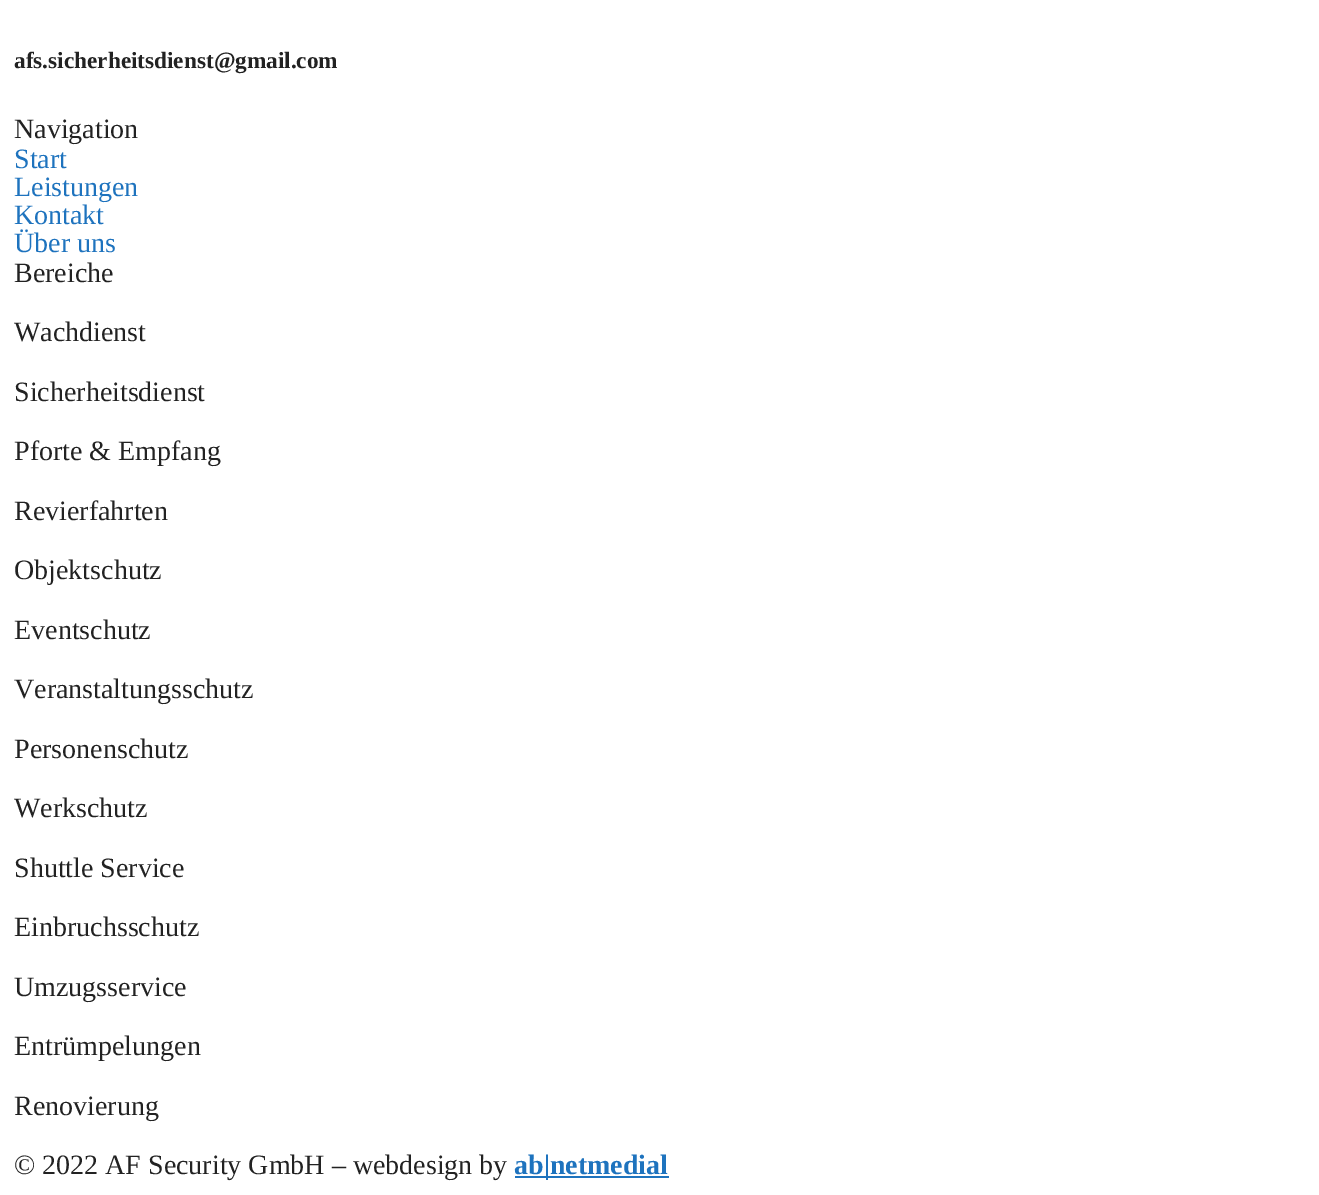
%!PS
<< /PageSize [1319 1195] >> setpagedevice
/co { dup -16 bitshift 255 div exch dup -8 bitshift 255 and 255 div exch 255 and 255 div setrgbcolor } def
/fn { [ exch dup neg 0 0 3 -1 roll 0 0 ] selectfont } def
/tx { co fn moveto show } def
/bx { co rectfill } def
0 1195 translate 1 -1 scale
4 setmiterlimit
0 0 1319 1195 16#FFFFFF bx
515 1176 154 2 16#1E73BE bx
(afs.sicherheitsdienst@gmail.com) 14 68 /LiberationSerif-Bold 23.25 16#222222 tx
(Navigation) 14 138 /LiberationSerif-Regular 28 16#222222 tx
(Start) 14 168 /LiberationSerif-Regular 28 16#1E73BE tx
(Leistungen) 14 196 /LiberationSerif-Regular 28 16#1E73BE tx
(Kontakt) 14 224 /LiberationSerif-Regular 28 16#1E73BE tx
(Über uns) 14 252 /LiberationSerif-Regular 28 16#1E73BE tx
(Bereiche) 14 282 /LiberationSerif-Regular 28 16#222222 tx
(Wachdienst) 14 341 /LiberationSerif-Regular 28 16#222222 tx
(Sicherheitsdienst) 14 401 /LiberationSerif-Regular 28 16#222222 tx
(Pforte & Empfang) 14 460 /LiberationSerif-Regular 28 16#222222 tx
(Revierfahrten) 14 520 /LiberationSerif-Regular 28 16#222222 tx
(Objektschutz) 14 579 /LiberationSerif-Regular 28 16#222222 tx
(Eventschutz) 14 639 /LiberationSerif-Regular 28 16#222222 tx
(Veranstaltungsschutz) 14 698 /LiberationSerif-Regular 28 16#222222 tx
(Personenschutz) 14 758 /LiberationSerif-Regular 28 16#222222 tx
(Werkschutz) 14 817 /LiberationSerif-Regular 28 16#222222 tx
(Shuttle Service) 14 877 /LiberationSerif-Regular 28 16#222222 tx
(Einbruchsschutz) 14 936 /LiberationSerif-Regular 28 16#222222 tx
(Umzugsservice) 14 996 /LiberationSerif-Regular 28 16#222222 tx
(Entrümpelungen) 14 1055 /LiberationSerif-Regular 28 16#222222 tx
(Renovierung) 14 1115 /LiberationSerif-Regular 28 16#222222 tx
(© 2022 AF Security GmbH – webdesign by) 14 1174 /LiberationSerif-Regular 28 16#222222 tx
(ab|netmedial) 514 1174 /LiberationSerif-Bold 28 16#1E73BE tx
showpage
